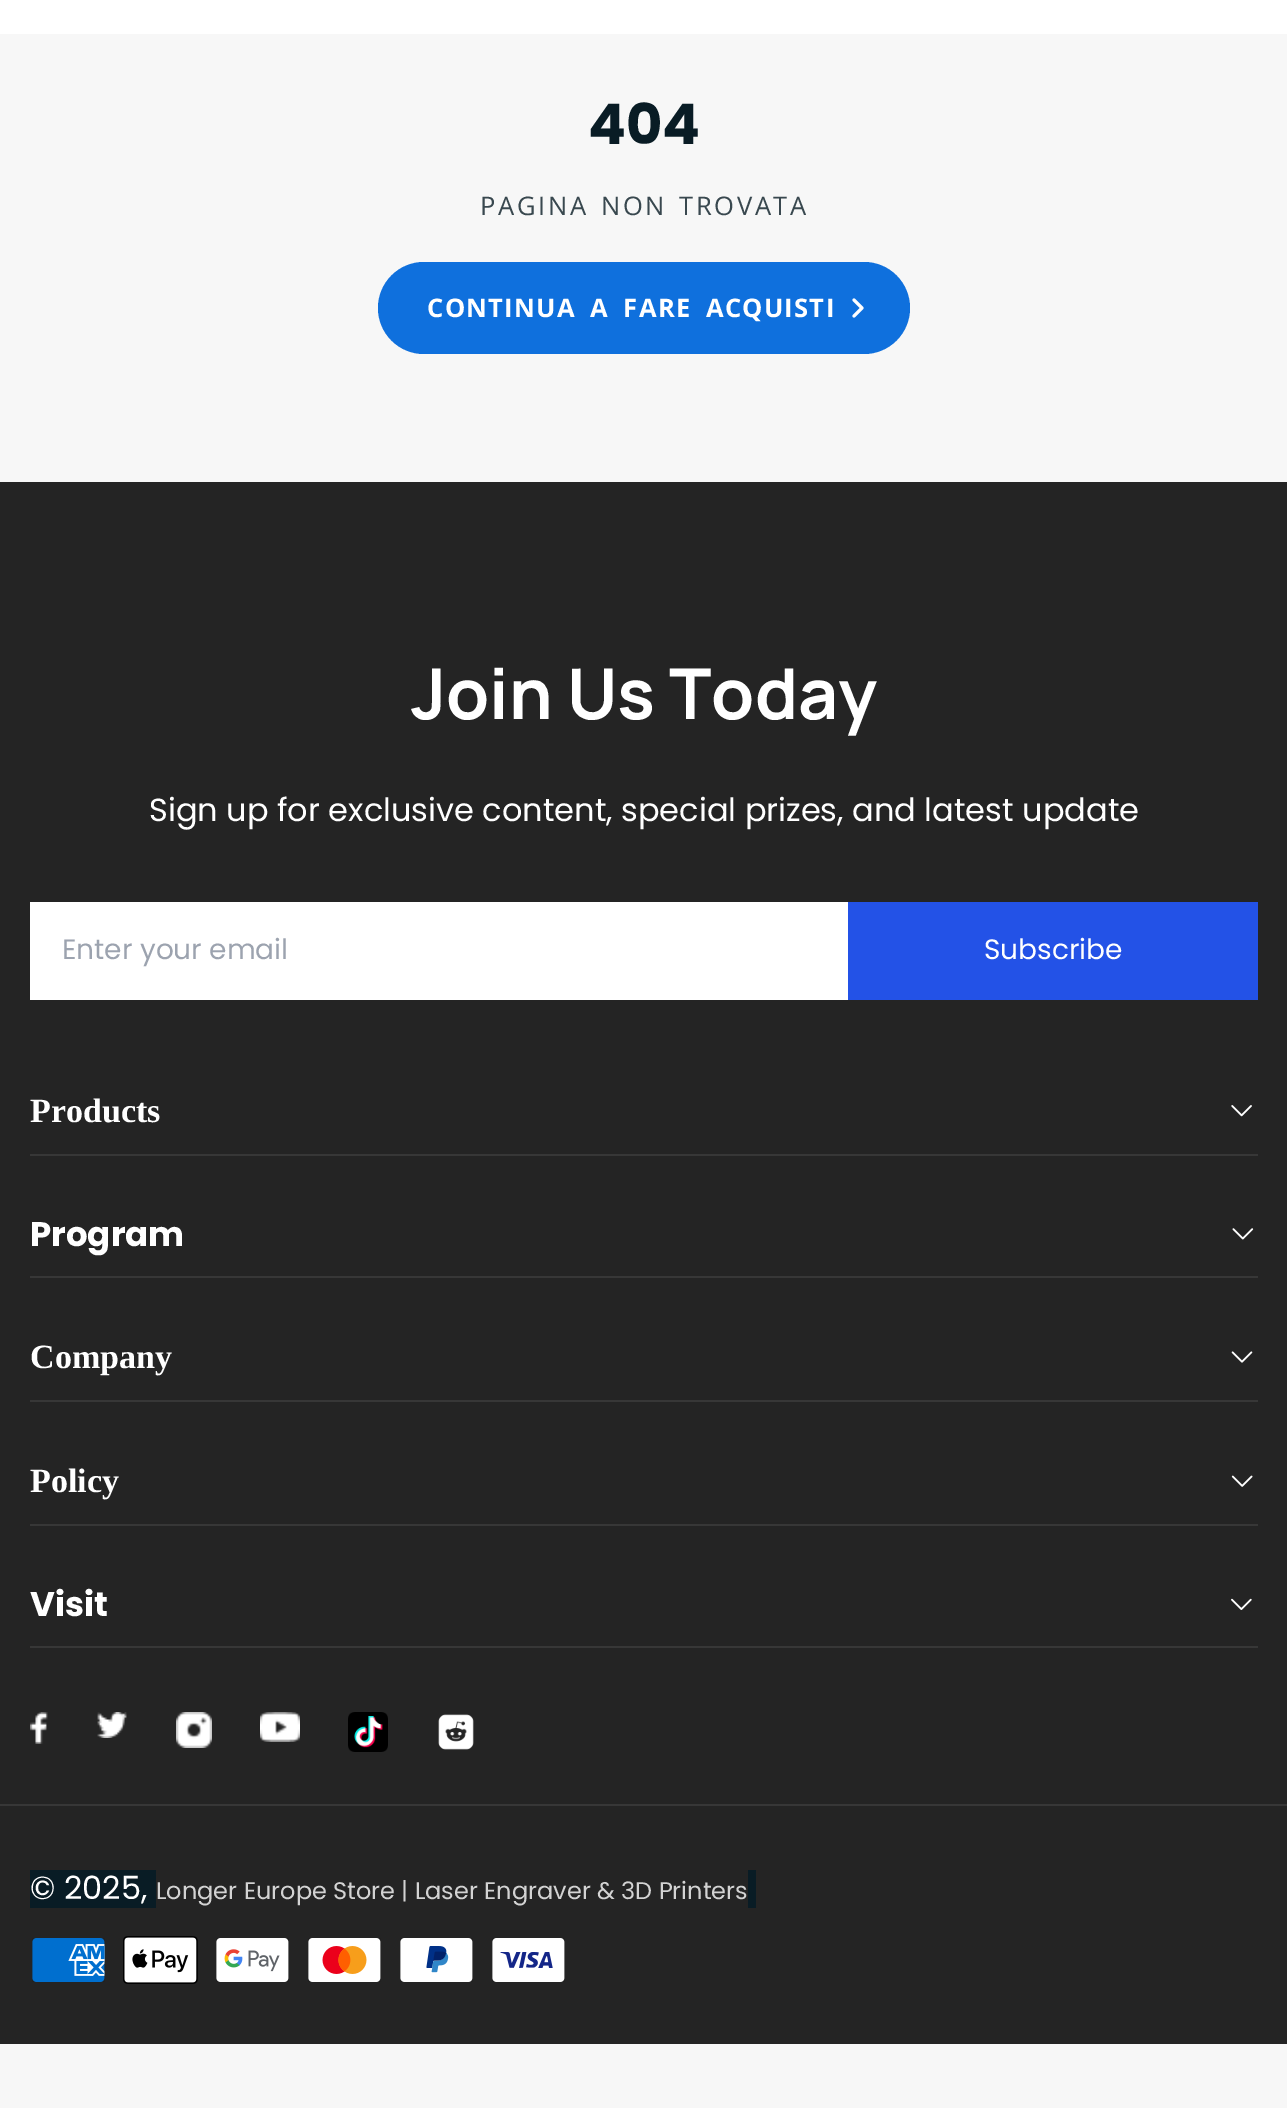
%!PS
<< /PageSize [1287 2108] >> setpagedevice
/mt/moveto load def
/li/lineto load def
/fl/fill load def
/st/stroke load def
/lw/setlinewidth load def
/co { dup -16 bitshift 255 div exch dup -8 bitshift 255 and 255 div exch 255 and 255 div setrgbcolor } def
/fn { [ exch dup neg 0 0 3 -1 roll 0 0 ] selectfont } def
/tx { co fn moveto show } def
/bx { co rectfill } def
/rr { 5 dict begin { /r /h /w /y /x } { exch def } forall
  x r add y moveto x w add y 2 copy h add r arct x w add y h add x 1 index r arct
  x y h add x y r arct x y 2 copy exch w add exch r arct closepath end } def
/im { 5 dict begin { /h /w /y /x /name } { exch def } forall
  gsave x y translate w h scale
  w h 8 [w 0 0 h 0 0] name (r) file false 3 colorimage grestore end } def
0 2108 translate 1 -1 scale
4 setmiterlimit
0 0 1287 2108 16#F7F7F7 bx
0 0 1287 34 16#FFFFFF bx
16#0F70DD co
378 262 532 92 46 rr fl
16#FFFFFF co
3.1 lw
1 setlinecap
1 setlinejoin
854 316 mt 862 308 li 854 300 li st
0 482 1287 1562 16#242424 bx
30 902 818 98 16#FFFFFF bx
848 902 410 98 16#2352E7 bx
30 1154 1228 2 16#373737 bx
(media/1.raw) 1231 1105 21 12 im
30 1276 1228 2 16#373737 bx
(media/2.raw) 1232 1228 22 12 im
30 1400 1228 2 16#373737 bx
(media/3.raw) 1231 1351 22 12 im
30 1524 1228 2 16#373737 bx
(media/4.raw) 1231 1475 22 12 im
30 1646 1228 2 16#373737 bx
(media/5.raw) 1231 1598 21 12 im
(media/6.raw) 30 1712 18 32 im
(media/7.raw) 97 1712 30 26 im
(media/8.raw) 176 1712 36 36 im
(media/9.raw) 260 1712 40 30 im
(media/10.raw) 348 1712 40 40 im
(media/11.raw) 438 1714 36 36 im
0 1804 1287 2 16#373737 bx
30 1870 126 38 16#091C25 bx
748 1870 8 38 16#091C25 bx
(media/12.raw) 32 1938 73 44 im
(media/13.raw) 123 1936 75 48 im
(media/14.raw) 216 1938 73 44 im
(media/15.raw) 308 1938 73 44 im
(media/16.raw) 400 1938 73 44 im
(media/17.raw) 492 1938 73 44 im
(404) 588 144 /Poppins-Bold 56 16#091C25 tx
/OpenSans-Regular 25.6 fn
16#39484F co
480 215 mt 3 0 32 2.6 0 (PAGINA NON TROVATA) awidthshow
/OpenSans-Bold 25.6 fn
16#FFFFFF co
427 317 mt 6.5 0 32 1.25 0 (CONTINUA A FARE ACQUISTI) awidthshow
(Join Us Today) 411 719 /Manrope-Bold 70 16#FFFFFF tx
(Sign up for exclusive content, special prizes, and latest update) 149 821 /Poppins-Regular 32 16#FFFFFF tx
(Enter your email) 62 959 /Poppins-Regular 28 16#9CA3AF tx
(Subscribe) 984 959 /Poppins-Regular 28 16#FFFFFF tx
(Products) 30 1122 /LiberationSerif-Bold 34 16#FFFFFF tx
(Program) 30 1246 /Poppins-Bold 34 16#FFFFFF tx
(Company) 30 1368 /LiberationSerif-Bold 34 16#FFFFFF tx
(Policy) 30 1492 /LiberationSerif-Bold 34 16#FFFFFF tx
(Visit) 30 1616 /Poppins-Bold 34 16#FFFFFF tx
(© 2025,) 30 1899 /Poppins-Regular 32 16#FFFFFF tx
(Longer Europe Store | Laser Engraver & 3D Printers) 156 1899 /Poppins-Regular 24 16#D3D3D3 tx
showpage
